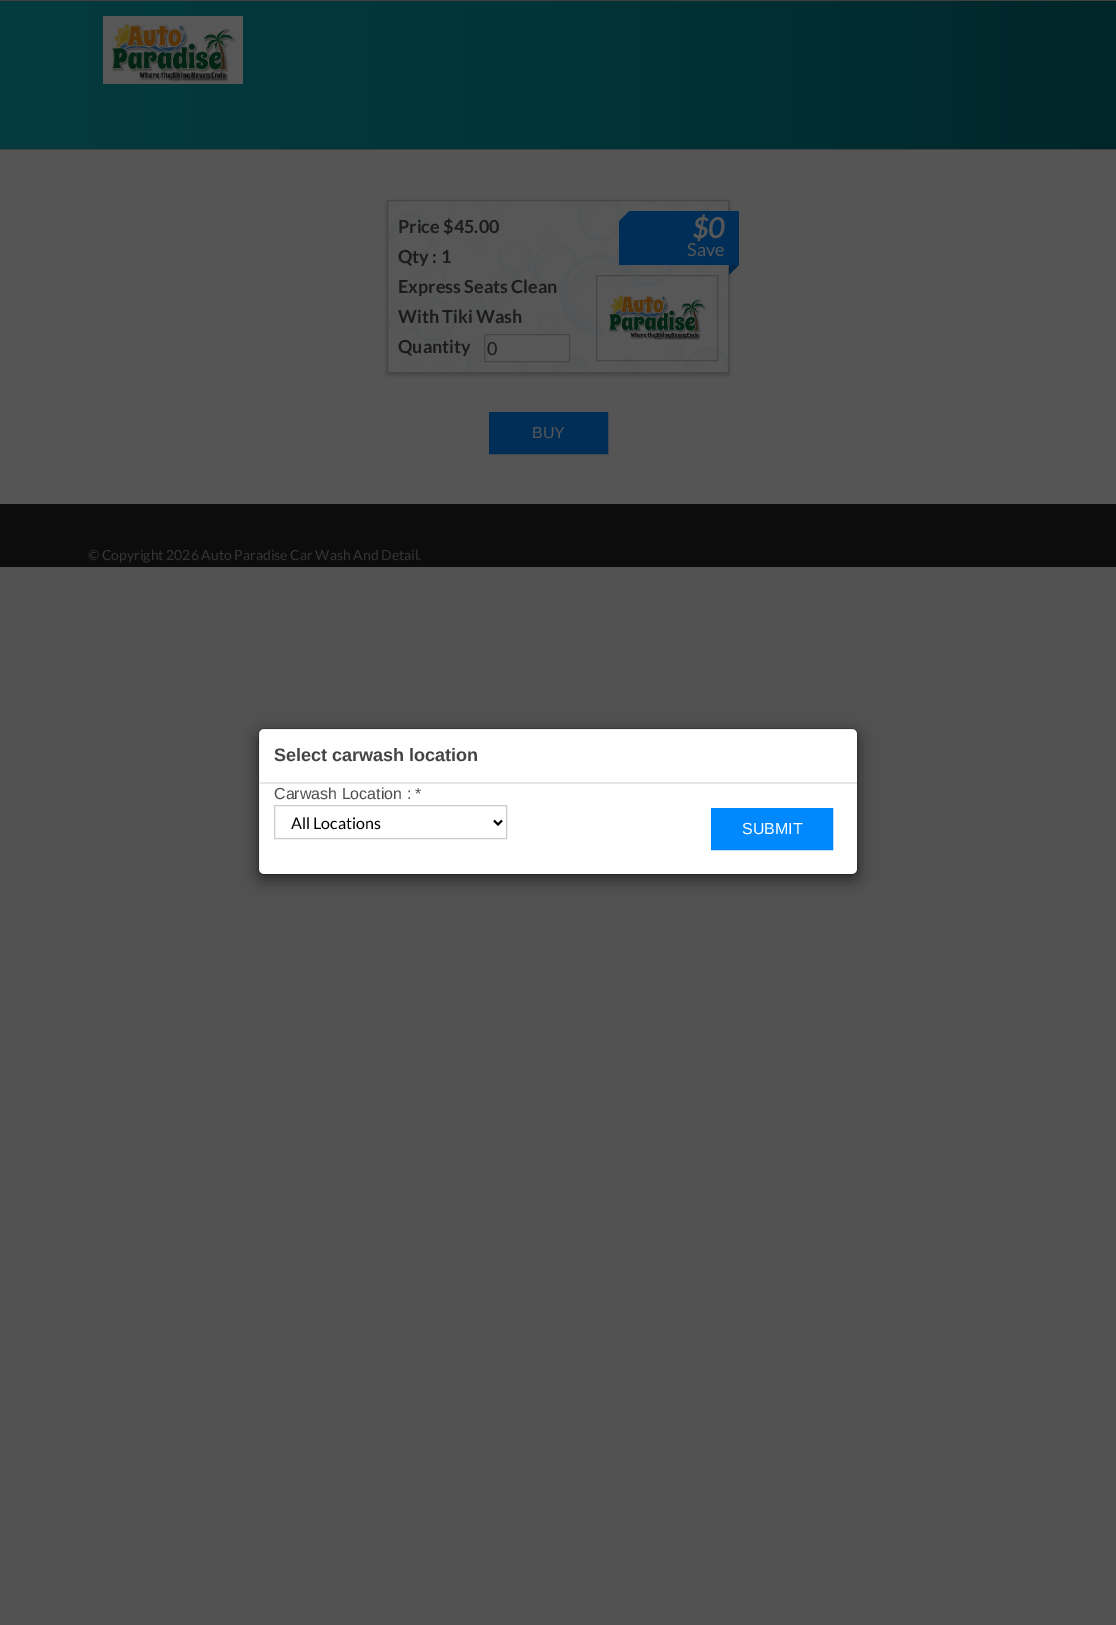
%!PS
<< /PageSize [1116 1625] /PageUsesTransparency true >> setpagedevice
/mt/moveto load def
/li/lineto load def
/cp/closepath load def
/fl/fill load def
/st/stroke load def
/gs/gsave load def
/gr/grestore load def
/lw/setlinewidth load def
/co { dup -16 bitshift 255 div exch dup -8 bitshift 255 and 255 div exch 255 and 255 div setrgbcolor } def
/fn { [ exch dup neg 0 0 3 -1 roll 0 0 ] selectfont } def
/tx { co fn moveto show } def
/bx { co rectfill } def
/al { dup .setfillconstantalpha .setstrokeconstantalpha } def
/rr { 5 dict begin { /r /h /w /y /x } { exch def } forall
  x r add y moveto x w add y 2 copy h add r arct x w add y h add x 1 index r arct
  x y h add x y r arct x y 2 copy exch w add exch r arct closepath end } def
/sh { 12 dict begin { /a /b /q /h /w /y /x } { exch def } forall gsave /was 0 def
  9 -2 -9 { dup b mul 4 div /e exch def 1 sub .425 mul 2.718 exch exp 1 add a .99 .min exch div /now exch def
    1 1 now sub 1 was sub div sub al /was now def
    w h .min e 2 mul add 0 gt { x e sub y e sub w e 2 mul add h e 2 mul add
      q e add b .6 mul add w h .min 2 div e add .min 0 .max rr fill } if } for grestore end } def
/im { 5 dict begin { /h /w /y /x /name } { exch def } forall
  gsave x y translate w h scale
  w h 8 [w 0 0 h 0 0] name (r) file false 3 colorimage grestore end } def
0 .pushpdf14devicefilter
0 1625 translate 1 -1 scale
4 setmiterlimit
0 0 1116 1625 16#515151 bx
gs 0 1 mt 1116 1 li 1116 149 li 0 149 li cp clip newpath
<< /ShadingType 2 /ColorSpace /DeviceRGB /Coords [0 75 1116 75] /Extend [true true] /Function << /FunctionType 3 /Domain [0 1] /Functions [<< /FunctionType 2 /Domain [0 1] /C0 [.02 .227 .247] /C1 [0 .204 .22] /N 1 >> << /FunctionType 2 /Domain [0 1] /C0 [0 .204 .22] /C1 [0 .149 .161] /N 1 >>] /Bounds [.5] /Encode [0 1 0 1] >> >> shfill gr
0 0 1116 1 16#404040 bx
0 149 1116 1 16#404040 bx
(media/1.raw) 103 16 140 68 im
0 150 1116 354 16#555555 bx
16#000000 co
387 202 342 173 0 2 .2 sh
388 201 340 171 16#575757 bx
(media/2.raw) 388 201 340 171 im
16#454545 co
387.5 200.5 341 172 rectstroke
485 336 84 25 16#575757 bx
16#454545 co
484.5 334.5 85 27 rectstroke
619 211 120 54 16#002E57 bx
16#575757 co
619 211 mt 629 211 li 624 216 li cp fl
619 221 mt 619 211 li 624 216 li cp fl
16#012646 co
729 265 mt 739 265 li 734 270 li cp fl
729 275 mt 729 265 li 734 270 li cp fl
16#454545 co
596.5 275.5 121 85 rectstroke
(media/3.raw) 602 289 110 51 im
16#002E57 co
489.5 412.5 mt 607.5 412.5 li 607.5 453.5 li 489.5 453.5 li cp gs fl gr
16#012D54 co
st
0 504 1116 63 16#0C0C0C bx
16#000000 co
258 733 600 147 6 7.5 .5 sh
16#FFFFFF co
259 729 598 145 5 rr fl
0.2 al
16#000000 co
258.5 728.5 599 146 5.5 rr st
1 al
259 782 598 2 16#E5E5E5 bx
16#CCCCCC co
274.5 805.5 232 33 rectstroke
16#000000 co
2 lw
494 820.5 mt 498 824.5 li 502 820.5 li st
16#0088FF co
711.5 808.5 mt 832.5 808.5 li 832.5 849.5 li 711.5 849.5 li cp gs fl gr
16#0285F8 co
1 lw
st
(Price $45.00) 398 233 /Lato-Bold 18 16#1B1B1B tx
(Qty : 1) 398 263 /Lato-Bold 18 16#1B1B1B tx
(Express Seats Clean) 398 293 /Lato-Bold 18 16#1B1B1B tx
(With Tiki Wash) 398 323 /Lato-Bold 18 16#1B1B1B tx
(Quantity) 398 353 /Lato-Bold 18 16#1B1B1B tx
(0) 487 355 /Lato-Regular 18 16#1B1B1B tx
($0) 692 238 /Lato-BoldItalic 28 16#575757 tx
(Save) 687 256 /Lato-Regular 18 16#575757 tx
(BUY) 532 438 /LiberationSans-Regular 16 16#575757 tx
(© Copyright 2026 Auto Paradise Car Wash And Detail.) 88 560 /Lato-Regular 14 16#343434 tx
(Select carwash location) 274 761 /LiberationSans-Bold 18 16#444444 tx
(Carwash Location : *) 274 799 /LiberationSans-Regular 16 16#4F4F4F tx
(All Locations) 291 829 /Lato-Regular 16 16#000000 tx
(SUBMIT) 742 834 /LiberationSans-Regular 16 16#FFFFFF tx
.poppdf14devicefilter showpage
